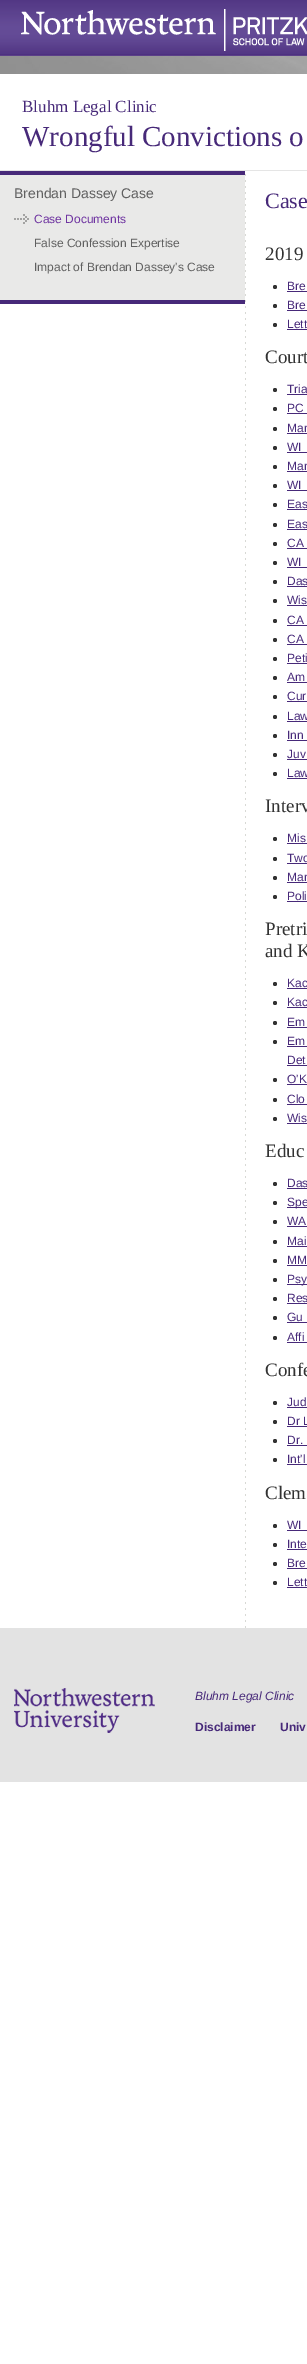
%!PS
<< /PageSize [307 2364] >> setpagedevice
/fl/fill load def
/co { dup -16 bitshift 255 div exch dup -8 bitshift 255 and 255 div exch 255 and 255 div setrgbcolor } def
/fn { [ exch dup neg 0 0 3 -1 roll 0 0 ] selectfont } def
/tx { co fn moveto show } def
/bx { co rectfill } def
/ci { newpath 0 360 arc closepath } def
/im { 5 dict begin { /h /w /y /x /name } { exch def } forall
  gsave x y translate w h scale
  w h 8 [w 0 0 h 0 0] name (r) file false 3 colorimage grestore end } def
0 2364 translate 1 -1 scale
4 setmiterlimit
0 0 307 2364 16#FFFFFF bx
(media/1.raw) 0 0 307 56 im
(media/2.raw) 21 9 286 42 im
(media/3.raw) 0 56 307 18 im
0 170 307 1 16#E5E5E5 bx
(media/4.raw) 245 174 1 1454 im
0 175 245 125 16#E9E9E8 bx
0 171 245 4 16#472979 bx
0 300 245 4 16#472979 bx
(media/5.raw) 14 214 15 10 im
16#323232 co
275 287 2 ci fl
287 291 20 1 16#472979 bx
16#323232 co
275 306 2 ci fl
287 310 20 1 16#472979 bx
16#323232 co
275 325 2 ci fl
287 329 20 1 16#472979 bx
16#323232 co
275 390 2 ci fl
287 394 20 1 16#472979 bx
16#323232 co
275 409 2 ci fl
287 413 20 1 16#472979 bx
16#323232 co
275 429 2 ci fl
287 433 20 1 16#472979 bx
16#323232 co
275 448 2 ci fl
287 452 20 1 16#472979 bx
16#323232 co
275 467 2 ci fl
287 471 20 1 16#472979 bx
16#323232 co
275 486 2 ci fl
287 490 20 1 16#472979 bx
16#323232 co
275 505 2 ci fl
287 509 20 1 16#472979 bx
16#323232 co
275 525 2 ci fl
287 529 20 1 16#472979 bx
16#323232 co
275 544 2 ci fl
287 548 20 1 16#472979 bx
16#323232 co
275 563 2 ci fl
287 567 20 1 16#472979 bx
16#323232 co
275 582 2 ci fl
287 586 20 1 16#472979 bx
16#323232 co
275 601 2 ci fl
287 605 20 1 16#472979 bx
16#323232 co
275 621 2 ci fl
287 625 20 1 16#472979 bx
16#323232 co
275 640 2 ci fl
287 644 20 1 16#472979 bx
16#323232 co
275 659 2 ci fl
287 663 20 1 16#472979 bx
16#323232 co
275 678 2 ci fl
287 682 20 1 16#472979 bx
16#323232 co
275 697 2 ci fl
287 701 20 1 16#472979 bx
16#323232 co
275 717 2 ci fl
287 721 20 1 16#472979 bx
16#323232 co
275 736 2 ci fl
287 740 20 1 16#472979 bx
16#323232 co
275 755 2 ci fl
287 759 20 1 16#472979 bx
16#323232 co
275 774 2 ci fl
287 778 20 1 16#472979 bx
16#323232 co
275 839 2 ci fl
287 843 20 1 16#472979 bx
16#323232 co
275 859 2 ci fl
287 863 20 1 16#472979 bx
16#323232 co
275 878 2 ci fl
287 882 20 1 16#472979 bx
16#323232 co
275 897 2 ci fl
287 901 20 1 16#472979 bx
16#323232 co
275 984 2 ci fl
287 988 20 1 16#472979 bx
16#323232 co
275 1003 2 ci fl
287 1007 20 1 16#472979 bx
16#323232 co
275 1023 2 ci fl
287 1027 20 1 16#472979 bx
16#323232 co
275 1042 2 ci fl
287 1046 20 1 16#472979 bx
287 1065 20 1 16#472979 bx
16#323232 co
275 1080 2 ci fl
287 1084 20 1 16#472979 bx
16#323232 co
275 1100 2 ci fl
287 1104 20 1 16#472979 bx
16#323232 co
275 1119 2 ci fl
287 1123 20 1 16#472979 bx
16#323232 co
275 1184 2 ci fl
287 1188 20 1 16#472979 bx
16#323232 co
275 1203 2 ci fl
287 1207 20 1 16#472979 bx
16#323232 co
275 1222 2 ci fl
287 1226 20 1 16#472979 bx
16#323232 co
275 1242 2 ci fl
287 1246 20 1 16#472979 bx
16#323232 co
275 1261 2 ci fl
287 1265 20 1 16#472979 bx
16#323232 co
275 1280 2 ci fl
287 1284 20 1 16#472979 bx
16#323232 co
275 1299 2 ci fl
287 1303 20 1 16#472979 bx
16#323232 co
275 1318 2 ci fl
287 1322 20 1 16#472979 bx
16#323232 co
275 1338 2 ci fl
287 1342 20 1 16#472979 bx
16#323232 co
275 1403 2 ci fl
287 1407 20 1 16#472979 bx
16#323232 co
275 1422 2 ci fl
287 1426 20 1 16#472979 bx
16#323232 co
275 1441 2 ci fl
287 1445 20 1 16#472979 bx
16#323232 co
275 1460 2 ci fl
287 1464 20 1 16#472979 bx
16#323232 co
275 1526 2 ci fl
287 1530 20 1 16#472979 bx
16#323232 co
275 1545 2 ci fl
287 1549 20 1 16#472979 bx
16#323232 co
275 1564 2 ci fl
287 1568 20 1 16#472979 bx
16#323232 co
275 1583 2 ci fl
287 1587 20 1 16#472979 bx
0 1628 307 154 16#E3E3E3 bx
(media/6.raw) 14 1688 141 45 im
(Bluhm Legal Clinic) 22 112 /LiberationSerif-Regular 17 16#472979 tx
(Wrongful Convictions o) 22 146 /LiberationSerif-Regular 29 16#472979 tx
(Brendan Dassey Case) 14 198 /LiberationSans-Regular 14 16#606060 tx
(Case Documents) 34 223 /LiberationSans-Regular 12 16#6F34A1 tx
(False Confession Expertise) 34 247 /LiberationSans-Regular 12 16#606060 tx
(Impact of Brendan Dassey's Case) 34 271 /LiberationSans-Regular 12 16#606060 tx
(Case) 265 208 /LiberationSerif-Regular 22 16#472979 tx
(2019) 265 260 /LiberationSerif-Regular 19 16#323232 tx
(Bre) 287 290 /LiberationSans-Regular 12 16#472979 tx
(Bre) 287 309 /LiberationSans-Regular 12 16#472979 tx
(Lett) 287 328 /LiberationSans-Regular 12 16#472979 tx
(Court) 265 363 /LiberationSerif-Regular 19 16#323232 tx
(Tria) 287 393 /LiberationSans-Regular 12 16#472979 tx
(PC) 287 412 /LiberationSans-Regular 12 16#472979 tx
(Man) 287 432 /LiberationSans-Regular 12 16#472979 tx
(WI) 287 451 /LiberationSans-Regular 12 16#472979 tx
(Man) 287 470 /LiberationSans-Regular 12 16#472979 tx
(WI) 287 489 /LiberationSans-Regular 12 16#472979 tx
(Eas) 287 508 /LiberationSans-Regular 12 16#472979 tx
(Eas) 287 528 /LiberationSans-Regular 12 16#472979 tx
(CA) 287 547 /LiberationSans-Regular 12 16#472979 tx
(WI) 287 566 /LiberationSans-Regular 12 16#472979 tx
(Das) 287 585 /LiberationSans-Regular 12 16#472979 tx
(Wis) 287 604 /LiberationSans-Regular 12 16#472979 tx
(CA) 287 624 /LiberationSans-Regular 12 16#472979 tx
(CA) 287 643 /LiberationSans-Regular 12 16#472979 tx
(Peti) 287 662 /LiberationSans-Regular 12 16#472979 tx
(Am) 287 681 /LiberationSans-Regular 12 16#472979 tx
(Cur) 287 700 /LiberationSans-Regular 12 16#472979 tx
(Law) 287 720 /LiberationSans-Regular 12 16#472979 tx
(Inn) 287 739 /LiberationSans-Regular 12 16#472979 tx
(Juv) 287 758 /LiberationSans-Regular 12 16#472979 tx
(Law) 287 777 /LiberationSans-Regular 12 16#472979 tx
(Interv) 265 812 /LiberationSerif-Regular 19 16#323232 tx
(Mis) 287 842 /LiberationSans-Regular 12 16#472979 tx
(Two) 287 862 /LiberationSans-Regular 12 16#472979 tx
(Man) 287 881 /LiberationSans-Regular 12 16#472979 tx
(Poli) 287 900 /LiberationSans-Regular 12 16#472979 tx
(Pretri) 265 935 /LiberationSerif-Regular 19 16#323232 tx
(and K) 265 957 /LiberationSerif-Regular 19 16#323232 tx
(Kac) 287 987 /LiberationSans-Regular 12 16#472979 tx
(Kac) 287 1006 /LiberationSans-Regular 12 16#472979 tx
(Em) 287 1026 /LiberationSans-Regular 12 16#472979 tx
(Em) 287 1045 /LiberationSans-Regular 12 16#472979 tx
(Det) 287 1064 /LiberationSans-Regular 12 16#472979 tx
(O'K) 287 1083 /LiberationSans-Regular 12 16#472979 tx
(Clo) 287 1103 /LiberationSans-Regular 12 16#472979 tx
(Wis) 287 1122 /LiberationSans-Regular 12 16#472979 tx
(Educ) 265 1157 /LiberationSerif-Regular 19 16#323232 tx
(Das) 287 1187 /LiberationSans-Regular 12 16#472979 tx
(Spe) 287 1206 /LiberationSans-Regular 12 16#472979 tx
(WA) 287 1225 /LiberationSans-Regular 12 16#472979 tx
(Mai) 287 1245 /LiberationSans-Regular 12 16#472979 tx
(MM) 287 1264 /LiberationSans-Regular 12 16#472979 tx
(Psy) 287 1283 /LiberationSans-Regular 12 16#472979 tx
(Res) 287 1302 /LiberationSans-Regular 12 16#472979 tx
(Gu) 287 1321 /LiberationSans-Regular 12 16#472979 tx
(Affi) 287 1341 /LiberationSans-Regular 12 16#472979 tx
(Confe) 265 1376 /LiberationSerif-Regular 19 16#323232 tx
(Jud) 287 1406 /LiberationSans-Regular 12 16#472979 tx
(Dr L) 287 1425 /LiberationSans-Regular 12 16#472979 tx
(Dr.) 287 1444 /LiberationSans-Regular 12 16#472979 tx
(Int'l) 287 1463 /LiberationSans-Regular 12 16#472979 tx
(Clem) 265 1499 /LiberationSerif-Regular 19 16#323232 tx
(WI) 287 1529 /LiberationSans-Regular 12 16#472979 tx
(Inte) 287 1548 /LiberationSans-Regular 12 16#472979 tx
(Bre) 287 1567 /LiberationSans-Regular 12 16#472979 tx
(Lett) 287 1586 /LiberationSans-Regular 12 16#472979 tx
(Bluhm Legal Clinic) 195 1700 /LiberationSans-Italic 12 16#472979 tx
(Disclaimer) 195 1731 /LiberationSans-Bold 12 16#472979 tx
(Univ) 280 1731 /LiberationSans-Bold 12 16#472979 tx
showpage
